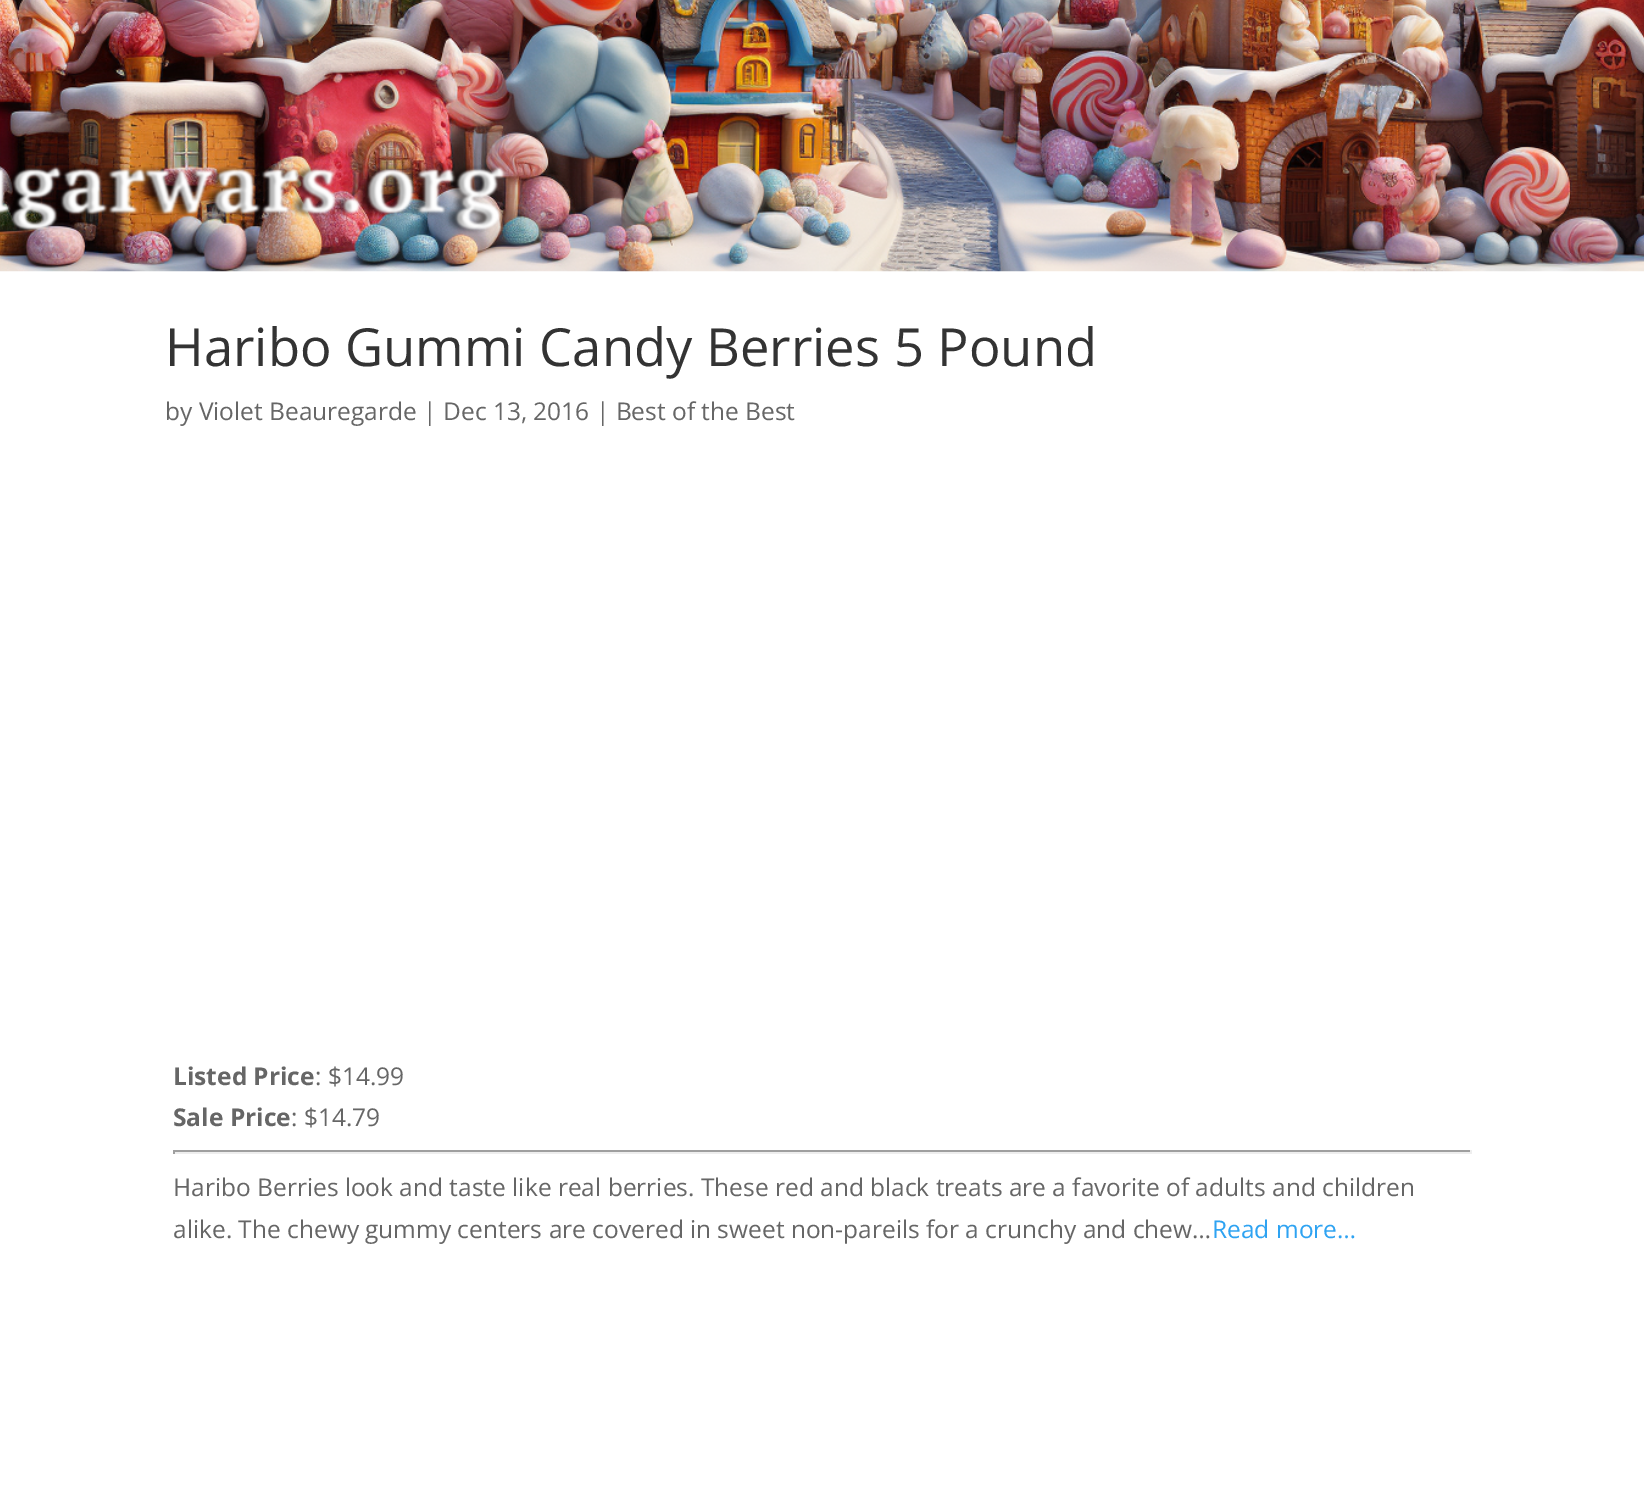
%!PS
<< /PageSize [1644 1491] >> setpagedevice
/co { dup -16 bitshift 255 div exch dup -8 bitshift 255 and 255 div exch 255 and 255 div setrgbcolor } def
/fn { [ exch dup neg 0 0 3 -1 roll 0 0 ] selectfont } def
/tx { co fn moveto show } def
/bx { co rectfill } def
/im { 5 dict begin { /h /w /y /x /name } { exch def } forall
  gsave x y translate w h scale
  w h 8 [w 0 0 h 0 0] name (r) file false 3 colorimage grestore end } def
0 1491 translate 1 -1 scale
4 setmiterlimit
0 0 1644 1491 16#FFFFFF bx
(media/1.raw) 0 0 1644 272 im
173 1150 1299 2 16#9F9F9F bx
1470 1150 2 4 16#EEEEEE bx
173 1152 1299 2 16#EEEEEE bx
173 1150 2 4 16#9F9F9F bx
(Haribo Gummi Candy Berries 5 Pound) 165 366 /OpenSans-Regular 52.5 16#333333 tx
(by Violet Beauregarde | Dec 13, 2016 | Best of the Best) 165 420 /OpenSans-Regular 24.5 16#666666 tx
(Listed Price) 173 1085 /OpenSans-Bold 24.5 16#666666 tx
(: $14.99) 315 1085 /OpenSans-Regular 24.5 16#666666 tx
(Sale Price) 173 1126 /OpenSans-Bold 24.5 16#666666 tx
(: $14.79) 291 1126 /OpenSans-Regular 24.5 16#666666 tx
(Haribo Berries look and taste like real berries. These red and black treats are a favorite of adults and children) 173 1196 /OpenSans-Regular 24.5 16#666666 tx
(alike. The chewy gummy centers are covered in sweet non-pareils for a crunchy and chew…) 173 1238 /OpenSans-Regular 24.5 16#666666 tx
(Read more…) 1212 1238 /OpenSans-Regular 24.5 16#2EA3F2 tx
showpage
